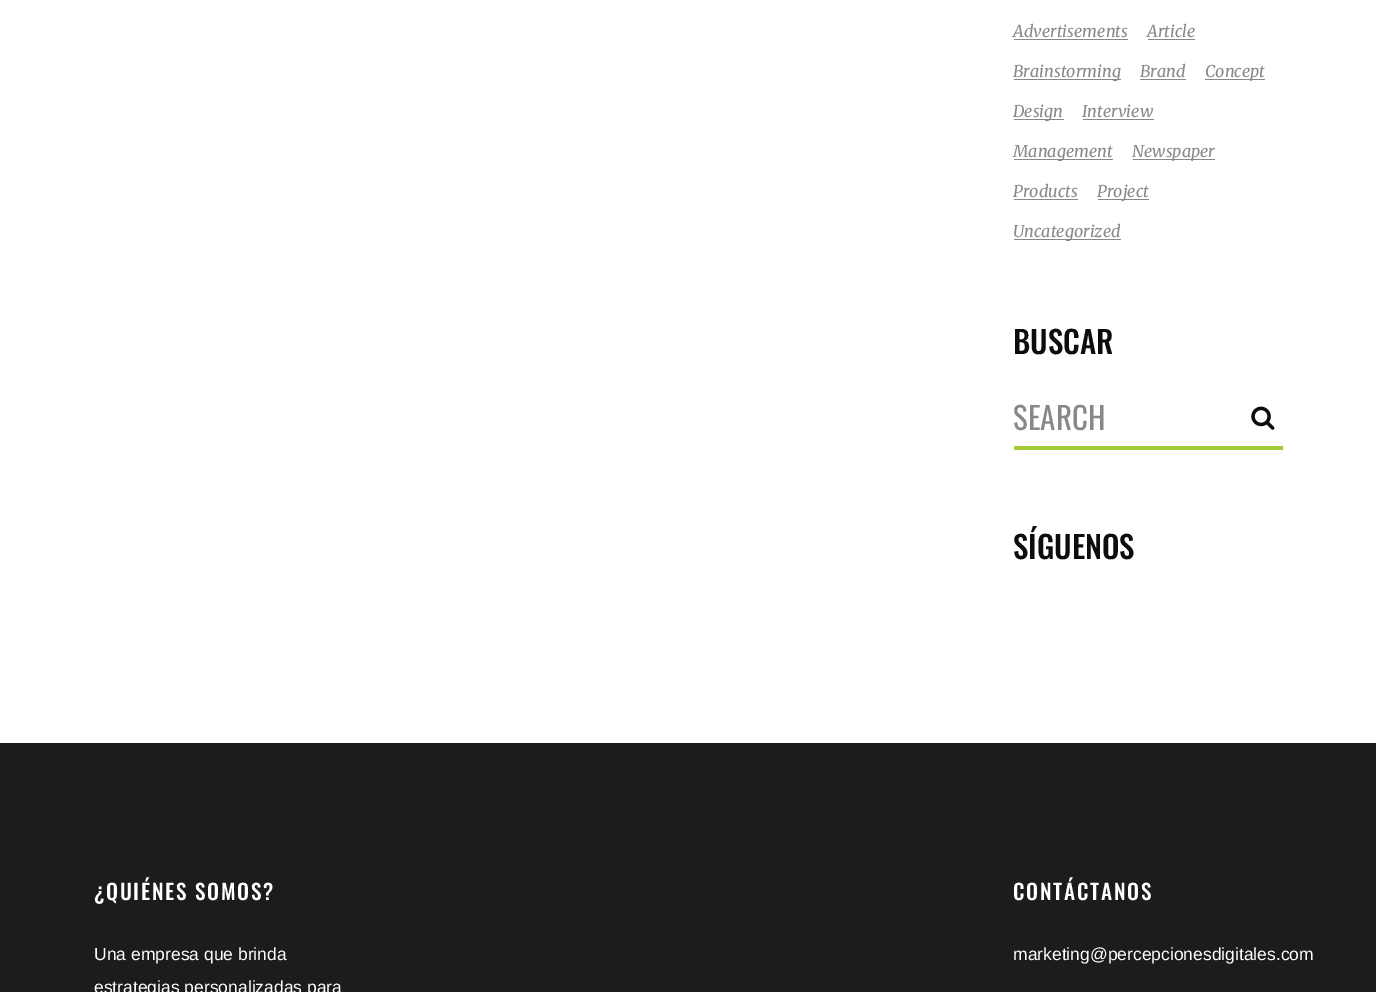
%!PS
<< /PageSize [1376 992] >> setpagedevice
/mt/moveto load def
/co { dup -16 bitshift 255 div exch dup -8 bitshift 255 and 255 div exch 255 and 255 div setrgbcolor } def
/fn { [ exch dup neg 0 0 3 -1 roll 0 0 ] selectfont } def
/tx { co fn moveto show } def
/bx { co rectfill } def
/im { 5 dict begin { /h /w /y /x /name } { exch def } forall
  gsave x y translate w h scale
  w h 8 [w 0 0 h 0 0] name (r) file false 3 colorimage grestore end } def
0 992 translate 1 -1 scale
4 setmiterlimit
0 0 1376 992 16#FFFFFF bx
1014 39 114 1 16#888888 bx
1148 39 47 1 16#888888 bx
1014 79 107 1 16#888888 bx
1140 79 46 1 16#888888 bx
1205 79 60 1 16#888888 bx
1014 119 50 1 16#888888 bx
1083 119 71 1 16#888888 bx
1014 159 99 1 16#888888 bx
1133 159 82 1 16#888888 bx
1014 199 64 1 16#888888 bx
1098 199 51 1 16#888888 bx
1014 239 107 1 16#888888 bx
1014 446 269 4 16#A6CC35 bx
(media/1.raw) 1251 406 24 24 im
0 743 1376 249 16#1C1C1C bx
(Advertisements) 1013 37 /Merriweather-LightItalic 16.25 16#888888 tx
(Article) 1147 37 /Merriweather-LightItalic 16.25 16#888888 tx
(Brainstorming) 1013 77 /Merriweather-LightItalic 16.25 16#888888 tx
(Brand) 1140 77 /Merriweather-LightItalic 16.25 16#888888 tx
(Concept) 1205 77 /Merriweather-LightItalic 16.25 16#888888 tx
(Design) 1013 117 /Merriweather-LightItalic 16.25 16#888888 tx
(Interview) 1082 117 /Merriweather-LightItalic 16.25 16#888888 tx
(Management) 1013 157 /Merriweather-LightItalic 16.25 16#888888 tx
(Newspaper) 1132 157 /Merriweather-LightItalic 16.25 16#888888 tx
(Products) 1013 197 /Merriweather-LightItalic 16.25 16#888888 tx
(Project) 1097 197 /Merriweather-LightItalic 16.25 16#888888 tx
(Uncategorized) 1013 237 /Merriweather-LightItalic 16.25 16#888888 tx
(BUSCAR) 1013 354 /Oswald-Medium 31 16#0D0D0D tx
(SEARCH) 1013 430 /Oswald-Regular 31 16#888888 tx
(SÍGUENOS) 1013 559 /Oswald-Medium 31 16#0D0D0D tx
/Oswald-Medium 21.25 fn
16#FFFFFF co
94 900 mt 1.75 0 (¿QUIÉNES SOMOS?) ashow
(Una empresa que brinda) 94 960 /LiberationSans-Regular 17.5 16#FFFFFF tx
(estrategias personalizadas para) 94 993 /LiberationSans-Regular 17.5 16#FFFFFF tx
/Oswald-Medium 21.25 fn
1013 900 mt 1.75 0 (CONTÁCTANOS) ashow
(marketing@percepcionesdigitales.com) 1013 960 /LiberationSans-Regular 17.5 16#FFFFFF tx
showpage
